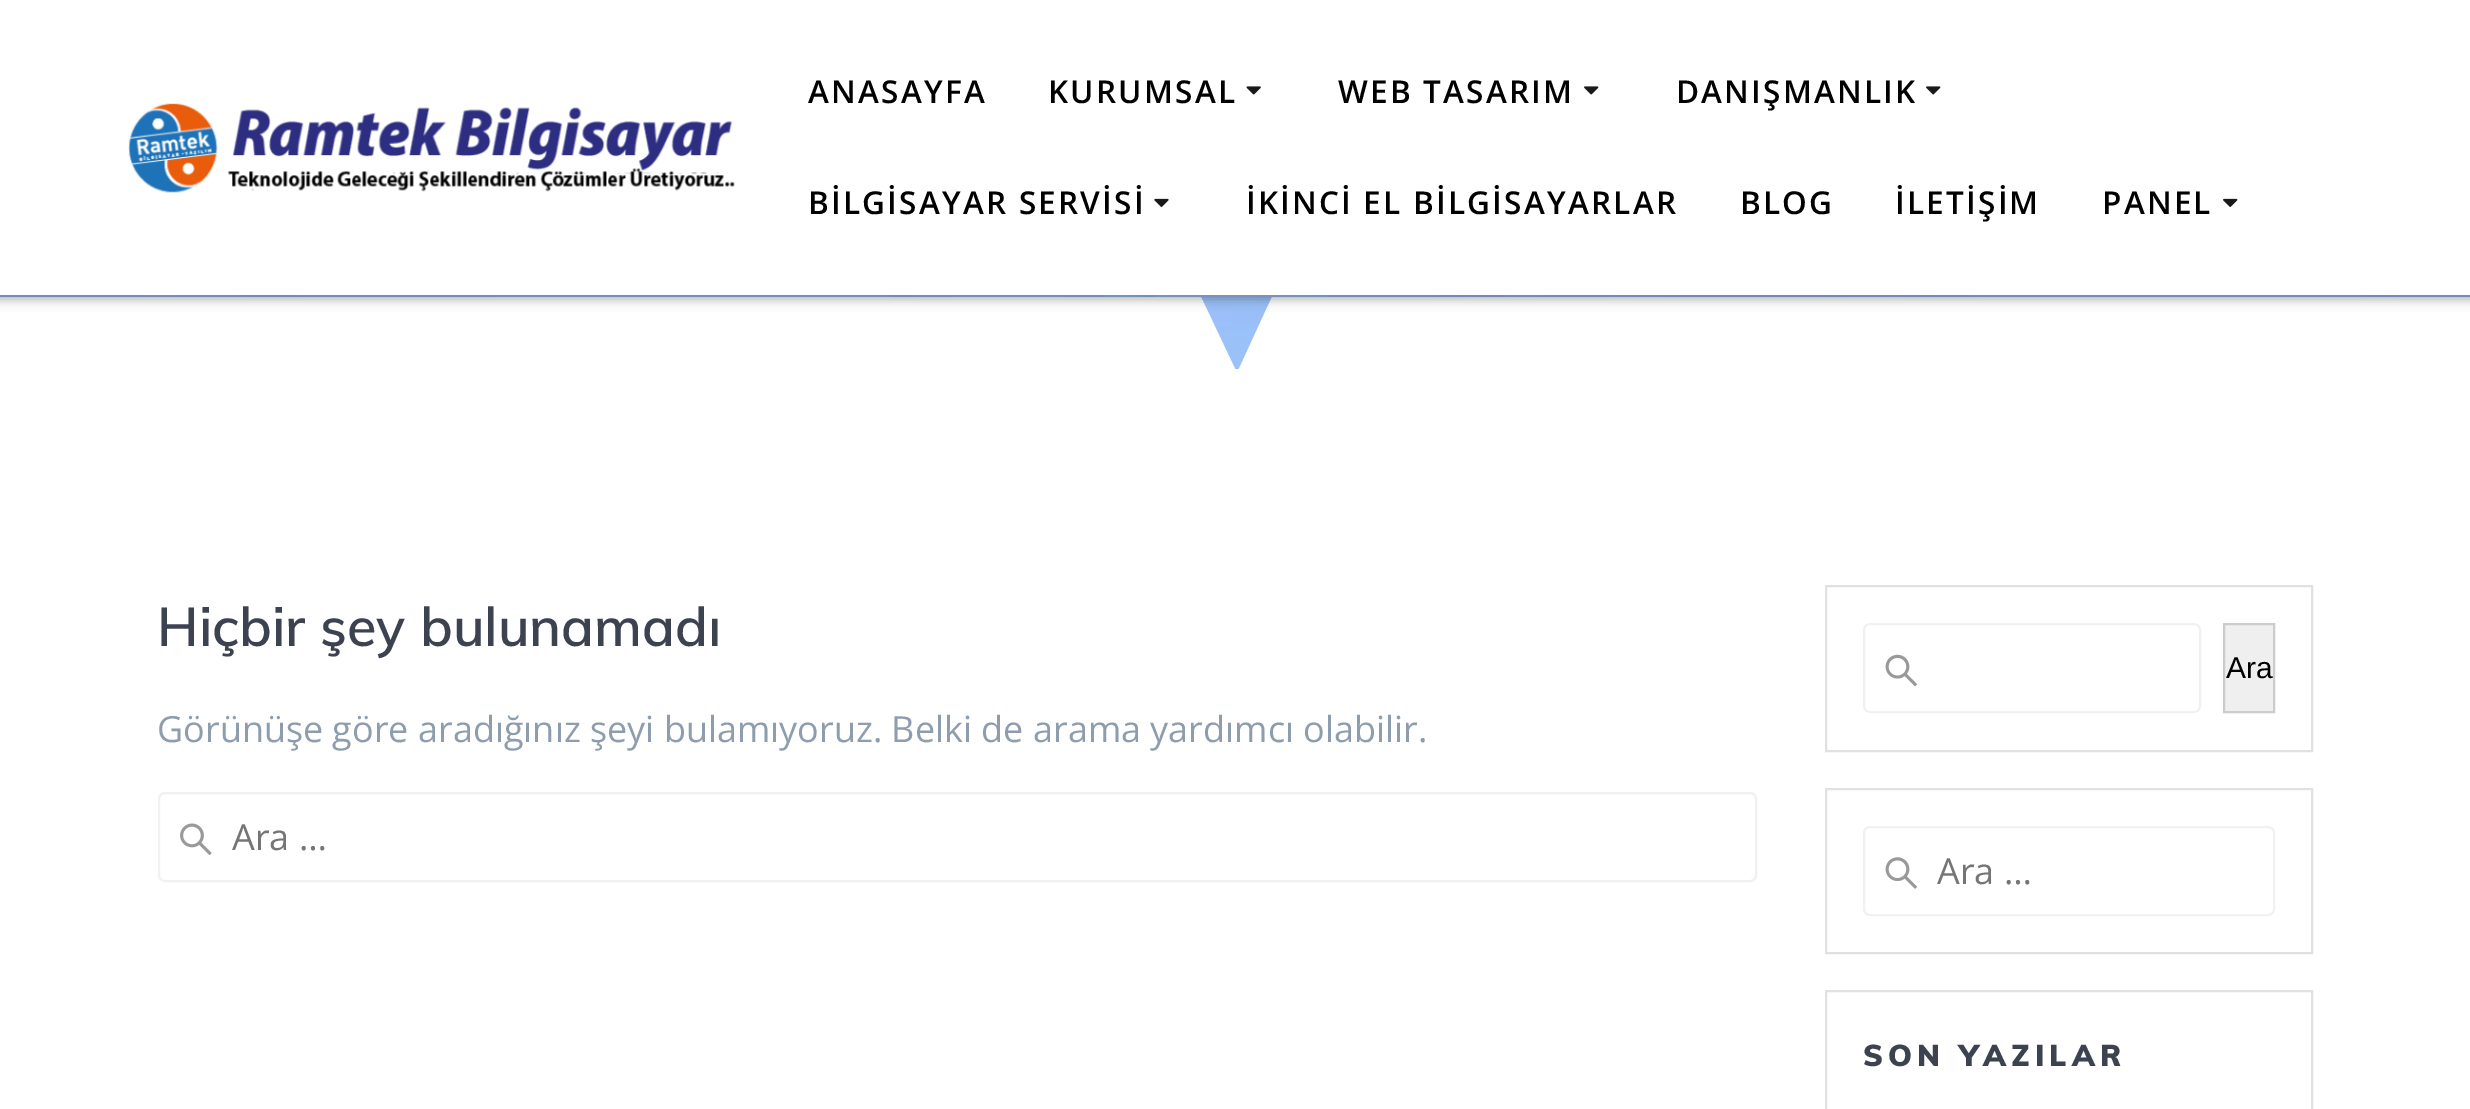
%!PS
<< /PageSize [2470 1109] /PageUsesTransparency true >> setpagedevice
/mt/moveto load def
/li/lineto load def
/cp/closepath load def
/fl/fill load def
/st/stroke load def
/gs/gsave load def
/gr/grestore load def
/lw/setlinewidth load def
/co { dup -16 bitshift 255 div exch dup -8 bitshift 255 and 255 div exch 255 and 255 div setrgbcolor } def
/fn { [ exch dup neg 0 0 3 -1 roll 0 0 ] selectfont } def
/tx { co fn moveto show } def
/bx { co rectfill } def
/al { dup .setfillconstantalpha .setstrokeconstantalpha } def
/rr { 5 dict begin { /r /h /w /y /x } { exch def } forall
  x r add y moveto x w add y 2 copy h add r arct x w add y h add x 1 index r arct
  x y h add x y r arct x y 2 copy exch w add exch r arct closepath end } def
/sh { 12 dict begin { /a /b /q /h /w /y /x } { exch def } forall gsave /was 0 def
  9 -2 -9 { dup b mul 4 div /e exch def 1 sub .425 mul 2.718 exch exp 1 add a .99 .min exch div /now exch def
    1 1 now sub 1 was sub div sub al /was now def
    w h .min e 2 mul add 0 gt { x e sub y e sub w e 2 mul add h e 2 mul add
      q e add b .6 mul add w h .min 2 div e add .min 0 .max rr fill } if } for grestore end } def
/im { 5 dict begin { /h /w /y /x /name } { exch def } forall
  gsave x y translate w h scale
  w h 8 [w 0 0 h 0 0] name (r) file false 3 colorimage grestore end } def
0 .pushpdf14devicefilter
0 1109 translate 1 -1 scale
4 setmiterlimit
0 0 2470 1109 16#FFFFFF bx
(media/6.raw) 0 295 2470 74 im
(media/7.raw) 891 295 1505 2 im
1272 297 mt 1237 373 li 1201 297 li 0 297 li 0 374 li 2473 374 li 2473 297 li fl
16#000000 co
-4 -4 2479 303 0 5.5 .33 sh
0 0 2470 295 16#FFFFFF bx
(media/1.raw) 128 103 607 91 im
(media/2.raw) 1246 86 15 9 im
(media/3.raw) 1584 86 15 9 im
(media/3.raw) 1926 86 15 9 im
(media/4.raw) 1154 198 15 9 im
(media/5.raw) 2223 198 15 9 im
(media/8.raw) 180 823 32 32 im
16#F1F1F1 co
2 lw
159 793 1597 88 6 rr st
16#E0E1E1 co
1826 586 486 165 rectstroke
(media/9.raw) 1885 654 32 33 im
16#F1F1F1 co
1864 624 336 88 6 rr st
16#EFEFEF co
2224 624 mt 2274 624 li 2274 712 li 2224 712 li cp gs fl gr
16#CCCCCC co
st
16#E0E1E1 co
1826 789 486 164 rectstroke
(media/10.raw) 1885 857 32 32 im
16#F1F1F1 co
1864 827 410 88 6 rr st
16#E0E1E1 co
1826 991 486 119 rectstroke
/OpenSans-SemiBold 31.5 fn
16#000000 co
808 103 mt 2.25 0 (ANASAYFA) ashow
1048 103 mt 2.25 0 (KURUMSAL) ashow
1338 103 mt 2.25 0 (WEB TASARIM) ashow
1676 103 mt 2.25 0 (DANIŞMANLIK) ashow
808 214 mt 2.25 0 (BİLGİSAYAR SERVİSİ) ashow
1246 214 mt 2.25 0 (İKİNCİ EL BİLGİSAYARLAR) ashow
1740 214 mt 2.25 0 (BLOG) ashow
1895 214 mt 2.25 0 (İLETİŞİM) ashow
2102 214 mt 2.25 0 (PANEL) ashow
(Hiçbir şey bulunamadı) 157 646 /Muli-SemiBold 54 16#3C424F tx
(Görünüşe göre aradığınız şeyi bulamıyoruz. Belki de arama yardımcı olabilir.) 157 742 /OpenSans-Regular 36 16#8E9DAE tx
(Ara …) 232 850 /OpenSans-Regular 36 16#757575 tx
(Ara) 2226 678 /LiberationSans-Regular 30 16#000000 tx
(Ara …) 1937 884 /OpenSans-Regular 36 16#757575 tx
/Muli-Black 29.9 fn
16#3C424F co
1863 1066 mt 5 0 (SON YAZILAR) ashow
.poppdf14devicefilter showpage
